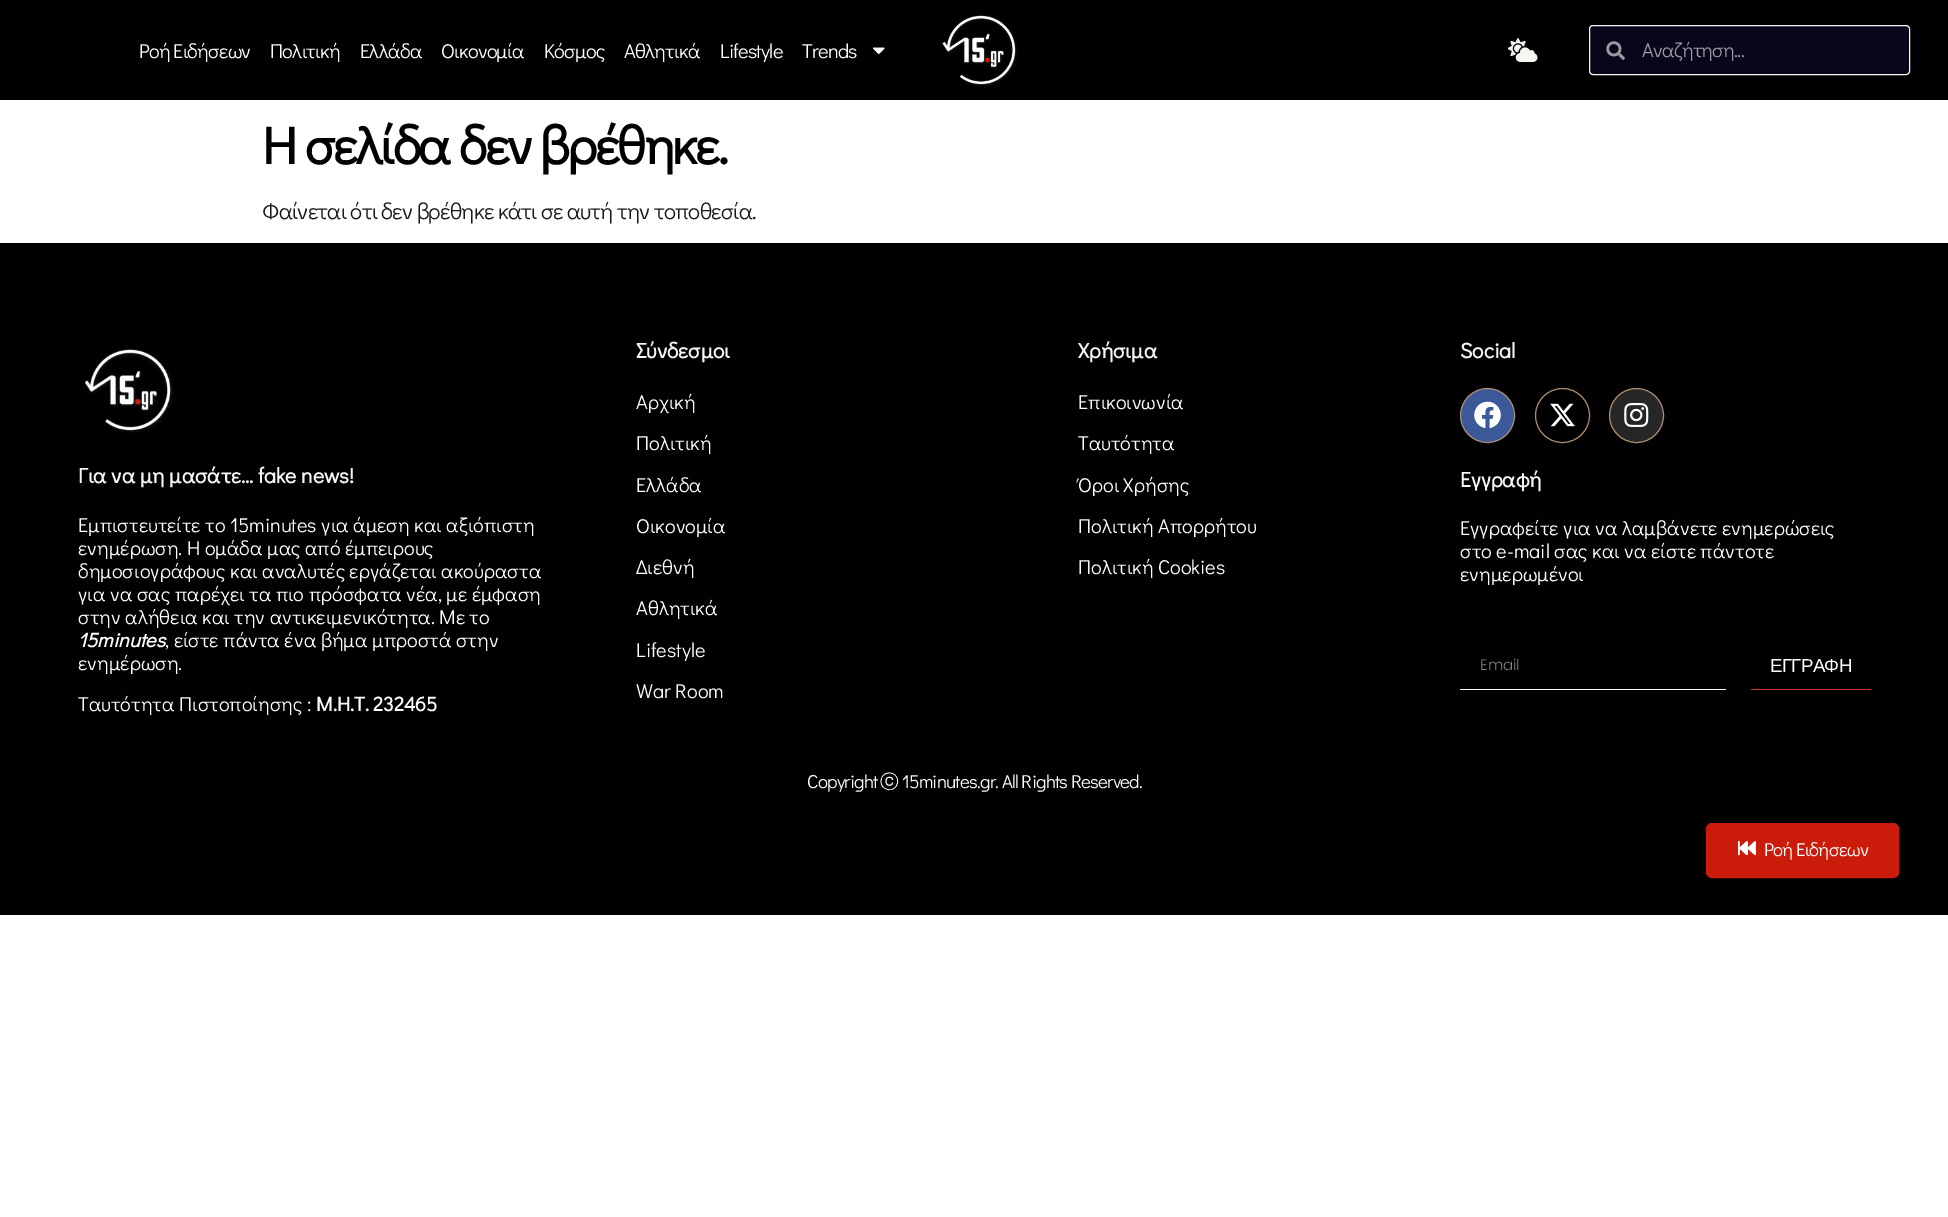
%!PS
<< /PageSize [1948 1217] >> setpagedevice
/mt/moveto load def
/fl/fill load def
/st/stroke load def
/gs/gsave load def
/gr/grestore load def
/co { dup -16 bitshift 255 div exch dup -8 bitshift 255 and 255 div exch 255 and 255 div setrgbcolor } def
/fn { [ exch dup neg 0 0 3 -1 roll 0 0 ] selectfont } def
/tx { co fn moveto show } def
/bx { co rectfill } def
/ci { newpath 0 360 arc closepath } def
/rr { 5 dict begin { /r /h /w /y /x } { exch def } forall
  x r add y moveto x w add y 2 copy h add r arct x w add y h add x 1 index r arct
  x y h add x y r arct x y 2 copy exch w add exch r arct closepath end } def
/im { 5 dict begin { /h /w /y /x /name } { exch def } forall
  gsave x y translate w h scale
  w h 8 [w 0 0 h 0 0] name (r) file false 3 colorimage grestore end } def
0 1217 translate 1 -1 scale
4 setmiterlimit
0 0 1948 1217 16#FFFFFF bx
0 0 1948 100 16#000000 bx
(media/1.raw) 873 47 12 7 im
(media/2.raw) 942 15 76 72 im
(media/3.raw) 1508 38 30 24 im
16#07061A co
1589.5 25.5 320 49 3.5 rr gs fl gr
16#F7F5F2 co
st
(media/4.raw) 1606 41 19 19 im
0 243 1948 672 16#000000 bx
(media/5.raw) 84 349 90 84 im
16#3B5998 co
1487.5 415.5 27 ci gs fl gr
16#AB8D6F co
st
(media/6.raw) 1474 401 27 28 im
1562.5 415.5 27 ci st
(media/7.raw) 1550 403 25 24 im
16#262626 co
1636.5 415.5 27 ci gs fl gr
16#AB8D6F co
st
(media/8.raw) 1624 402 25 25 im
1460 689 266 1 16#FFFFFF bx
1751 689 120 1 16#CB3522 bx
16#CB1B0A co
1706.5 823.5 192 54 5.5 rr gs fl gr
st
(media/9.raw) 1738 841 18 15 im
/DidactGothic-Regular 20 fn
16#FFFFFF co
139 58 mt -.75 0 (Ροή Ειδήσεων) ashow
270 58 mt -.75 0 (Πολιτική) ashow
360 58 mt -.75 0 (Ελλάδα) ashow
441 58 mt -.75 0 (Οικονομία) ashow
544 58 mt -.75 0 (Κόσμος) ashow
624 58 mt -.75 0 (Αθλητικά) ashow
720 58 mt -.75 0 (Lifestyle) ashow
802 58 mt -.75 0 (Trends) ashow
16#9B9AA2 co
1642 57 mt -.75 0 (Αναζήτηση...) ashow
/DidactGothic-Bold 52.5 fn
16#000000 co
262 164 mt -2 0 (Η σελίδα δεν βρέθηκε.) ashow
/DidactGothic-Regular 22.5 fn
16#19191B co
262 219 mt -.75 0 (Φαίνεται ότι δεν βρέθηκε κάτι σε αυτή την τοποθεσία.) ashow
(Για να μη μασάτε... fake news!) 78 483 /DidactGothic-Bold 21.25 16#F7F5F2 tx
(Εμπιστευτείτε το 15minutes για άμεση και αξιόπιστη) 78 532 /DidactGothic-Regular 20 16#FFFFFF tx
(ενημέρωση. Η ομάδα μας από έμπειρους) 78 555 /DidactGothic-Regular 20 16#FFFFFF tx
(δημοσιογράφους και αναλυτές εργάζεται ακούραστα) 78 578 /DidactGothic-Regular 20 16#FFFFFF tx
(για να σας παρέχει τα πιο πρόσφατα νέα, με έμφαση) 78 601 /DidactGothic-Regular 20 16#FFFFFF tx
(στην αλήθεια και την αντικειμενικότητα. Με το) 78 624 /DidactGothic-Regular 20 16#FFFFFF tx
(15minutes) 78 647 /DidactGothic-BoldItalic 20 16#FFFFFF tx
(, είστε πάντα ένα βήμα μπροστά στην) 165 647 /DidactGothic-Regular 20 16#FFFFFF tx
(ενημέρωση.) 78 670 /DidactGothic-Regular 20 16#FFFFFF tx
(Ταυτότητα Πιστοποίησης :) 78 711 /DidactGothic-Regular 20 16#FFFFFF tx
(Μ.Η.Τ. 232465) 316 711 /DidactGothic-Bold 20 16#FFFFFF tx
(Σύνδεσμοι) 636 358 /DidactGothic-Bold 21.25 16#F7F5F2 tx
(Αρχική) 636 409 /DidactGothic-Regular 20 16#FFFFFF tx
(Πολιτική) 636 450 /DidactGothic-Regular 20 16#FFFFFF tx
(Ελλάδα) 636 492 /DidactGothic-Regular 20 16#FFFFFF tx
(Οικονομία) 636 533 /DidactGothic-Regular 20 16#FFFFFF tx
(Διεθνή) 636 574 /DidactGothic-Regular 20 16#FFFFFF tx
(Αθλητικά) 636 615 /DidactGothic-Regular 20 16#FFFFFF tx
(Lifestyle) 636 657 /DidactGothic-Regular 20 16#FFFFFF tx
(War Room) 636 698 /DidactGothic-Regular 20 16#FFFFFF tx
(Χρήσιμα) 1078 358 /DidactGothic-Bold 21.25 16#F7F5F2 tx
(Επικοινωνία) 1078 409 /DidactGothic-Regular 20 16#FFFFFF tx
(Ταυτότητα) 1078 450 /DidactGothic-Regular 20 16#FFFFFF tx
(Όροι Χρήσης) 1078 492 /DidactGothic-Regular 20 16#FFFFFF tx
(Πολιτική Απορρήτου) 1078 533 /DidactGothic-Regular 20 16#FFFFFF tx
(Πολιτική Cookies) 1078 574 /DidactGothic-Regular 20 16#FFFFFF tx
(Social) 1460 358 /DidactGothic-Bold 21.25 16#F7F5F2 tx
(Εγγραφή) 1460 487 /DidactGothic-Bold 21.25 16#F7F5F2 tx
(Εγγραφείτε για να λαμβάνετε ενημερώσεις) 1460 535 /DidactGothic-Regular 20 16#FFFFFF tx
(στο e-mail σας και να είστε πάντοτε) 1460 558 /DidactGothic-Regular 20 16#FFFFFF tx
(ενημερωμένοι) 1460 581 /DidactGothic-Regular 20 16#FFFFFF tx
(Email) 1480 670 /Poppins-Light 15 16#838383 tx
/LiberationSans-Regular 18.75 fn
16#FFFFFF co
1770 672 mt -.75 0 (ΕΓΓΡΑΦΗ) ashow
/DidactGothic-Regular 18.75 fn
807 788 mt -.75 0 (Copyright) ashow
/WenQuanYiZenHei-Medium 18.75 fn
880 788 mt -.75 0 (ⓒ) ashow
/DidactGothic-Regular 18.75 fn
902 788 mt -.75 0 (15minutes.gr. All Rights Reserved.) ashow
1764 856 mt -.75 0 (Ροή Ειδήσεων) ashow
showpage
